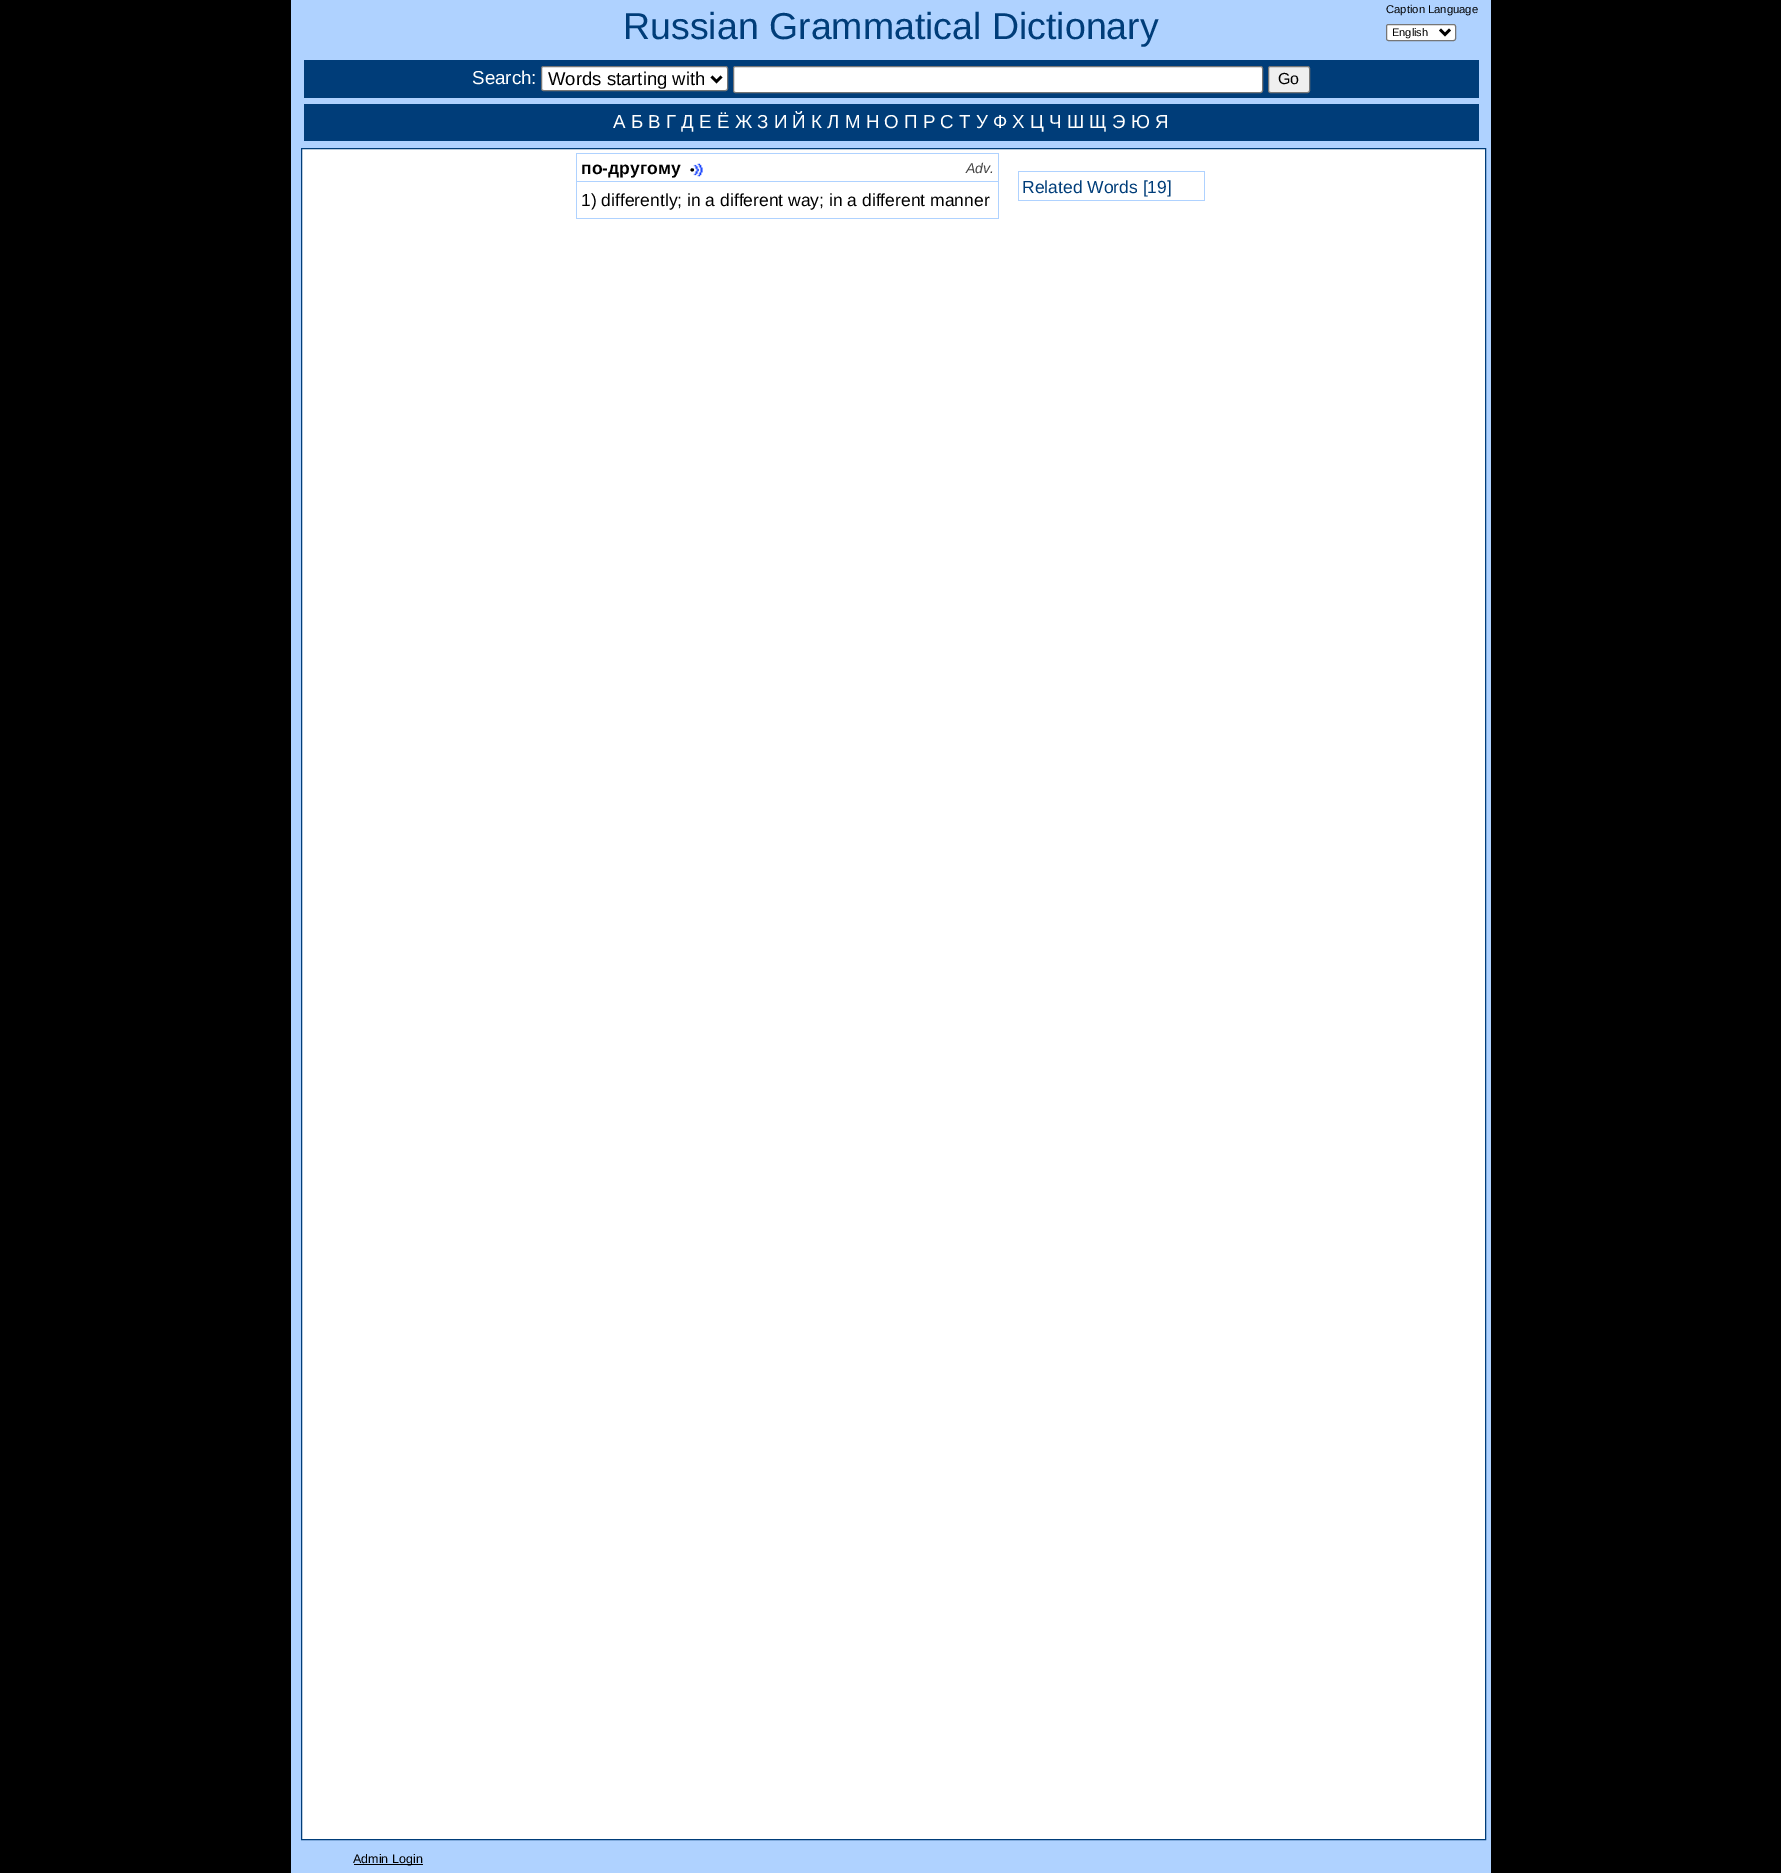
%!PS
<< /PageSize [1781 1873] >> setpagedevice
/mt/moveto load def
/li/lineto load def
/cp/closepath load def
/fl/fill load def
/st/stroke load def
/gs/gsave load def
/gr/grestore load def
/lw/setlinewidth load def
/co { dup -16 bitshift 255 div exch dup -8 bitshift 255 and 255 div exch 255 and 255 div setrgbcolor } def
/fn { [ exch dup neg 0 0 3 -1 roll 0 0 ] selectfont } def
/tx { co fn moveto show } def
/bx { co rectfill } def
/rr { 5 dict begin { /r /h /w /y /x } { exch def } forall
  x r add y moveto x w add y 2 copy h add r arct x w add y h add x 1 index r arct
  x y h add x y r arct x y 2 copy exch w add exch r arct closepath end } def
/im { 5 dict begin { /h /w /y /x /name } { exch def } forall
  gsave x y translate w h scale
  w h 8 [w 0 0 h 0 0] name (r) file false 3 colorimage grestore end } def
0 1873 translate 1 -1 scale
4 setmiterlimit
0 0 1781 1873 16#000000 bx
291 0 1200 1873 16#AFD2FF bx
16#FFFFFF co
1386.5 24.5 69 16 2 rr gs fl gr
16#767676 co
st
16#000000 co
2.5 lw
1440 29.5 mt 1445 34.5 li 1450 29.5 li st
304 60 1175 38 16#003D79 bx
16#FFFFFF co
541.5 66.5 186 24 2 rr gs fl gr
16#767676 co
1 lw
st
16#000000 co
2.5 lw
711.5 76.5 mt 716.5 81.5 li 721.5 76.5 li st
16#FFFFFF co
733.5 66.5 529 26 2 rr gs fl gr
16#767676 co
1 lw
st
16#EFEFEF co
1268.5 66.5 41 26 2 rr gs fl gr
16#767676 co
st
304 104 1175 37 16#003D79 bx
16#FFFFFF co
301.5 148.5 mt 1485.5 148.5 li 1485.5 1839.5 li 301.5 1839.5 li cp gs fl gr
16#003D79 co
st
576 153 423 1 16#AFD2FF bx
998 153 1 66 16#AFD2FF bx
576 218 423 1 16#AFD2FF bx
576 153 1 66 16#AFD2FF bx
576 181 423 1 16#AFD2FF bx
1018 171 187 1 16#AFD2FF bx
1204 171 1 30 16#AFD2FF bx
1018 200 187 1 16#AFD2FF bx
1018 171 1 30 16#AFD2FF bx
354 1864 69 1 16#000000 bx
(Russian Grammatical Dictionary) 623 39 /LiberationSans-Regular 37.5 16#003D79 tx
(Caption Language) 1386 13 /LiberationSans-Regular 11.25 16#000000 tx
(English) 1392 36 /LiberationSans-Regular 11 16#000000 tx
(Search:) 472 84 /LiberationSans-Regular 18.75 16#FFFFFF tx
(Words starting with) 548 85 /LiberationSans-Regular 18.5 16#000000 tx
(Go) 1278 84 /LiberationSans-Regular 16 16#000000 tx
(А Б В Г Д Е Ё Ж З И Й К Л М Н О П Р С Т У Ф Х Ц Ч Ш Щ Э Ю Я) 613 128 /LiberationSans-Regular 18.75 16#FFFFFF tx
(по-другому) 581 174 /LiberationSans-Bold 17.5 16#000000 tx
(•) 690 174 /LiberationSans-Regular 12.5 16#000000 tx
(media/1.raw) 693 163 10 14 im
(Adv.) 966 173 /LiberationSans-Italic 14 16#444444 tx
(1\) differently; in a different way; in a different manner) 581 206 /LiberationSans-Regular 17.5 16#000000 tx
(Related Words [19]) 1022 193 /LiberationSans-Regular 17.5 16#003D79 tx
(Admin Login) 353 1863 /LiberationSans-Regular 12.5 16#000000 tx
showpage
